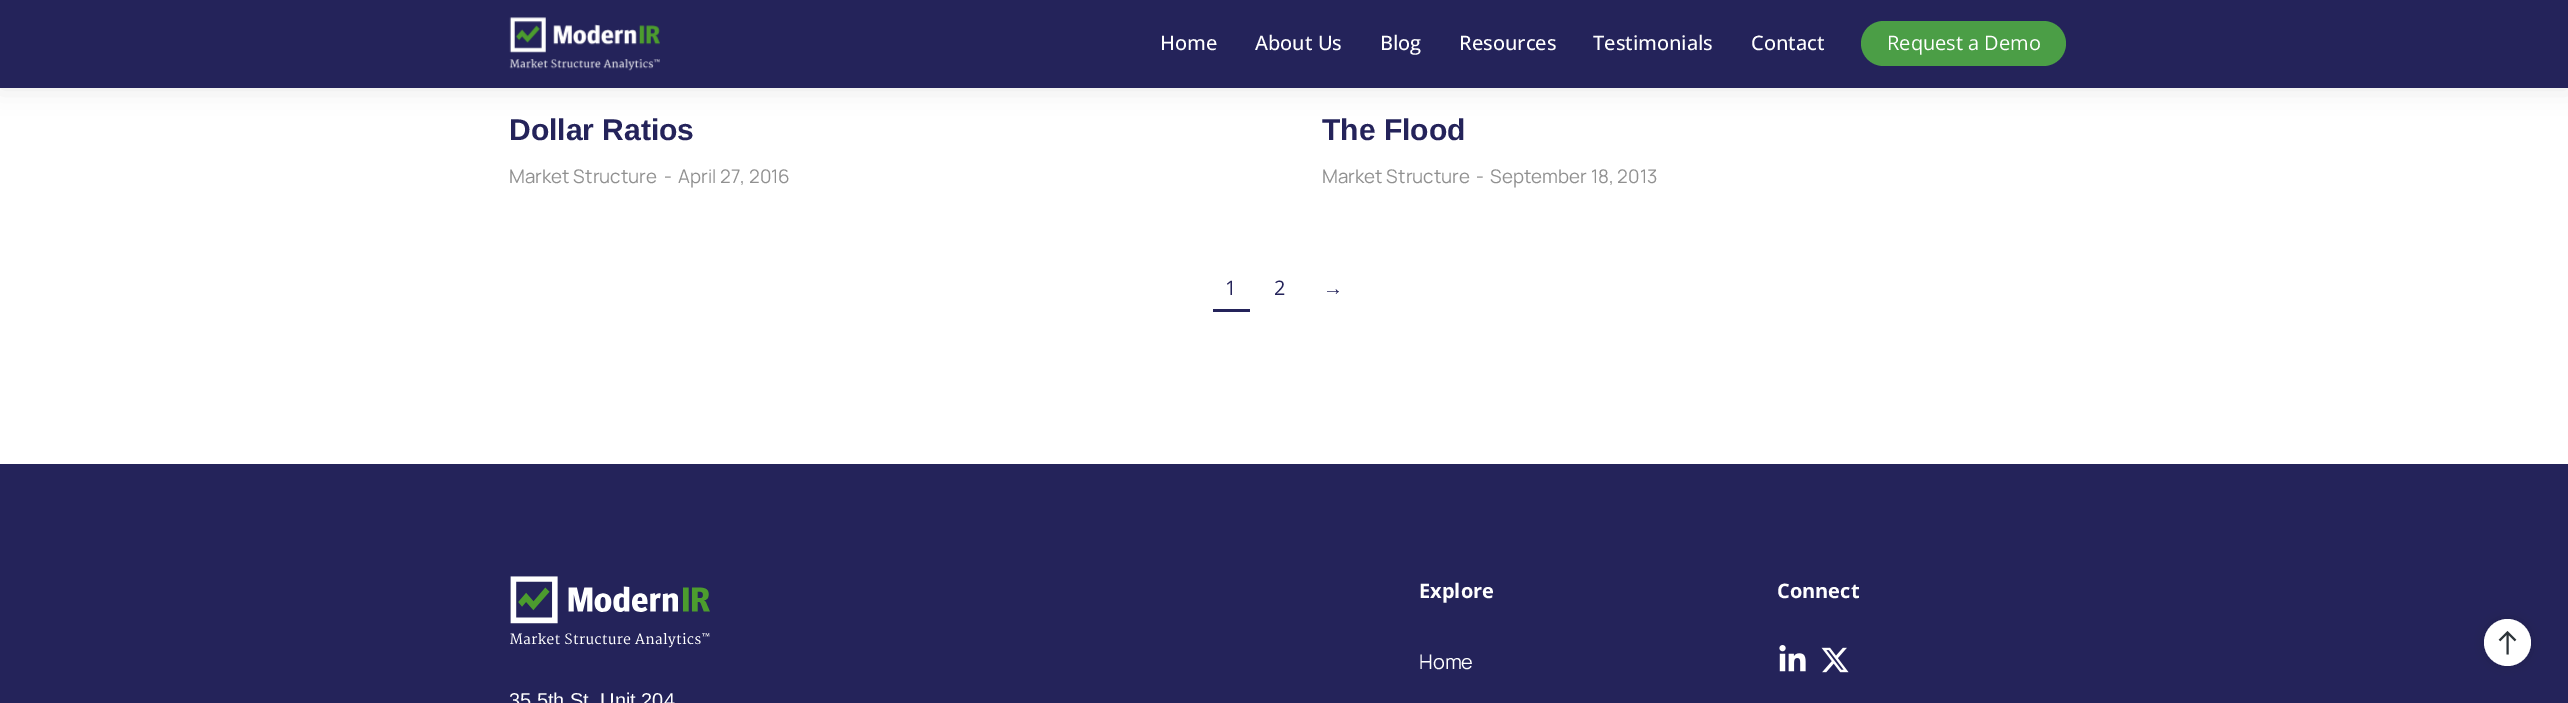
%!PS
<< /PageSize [2568 703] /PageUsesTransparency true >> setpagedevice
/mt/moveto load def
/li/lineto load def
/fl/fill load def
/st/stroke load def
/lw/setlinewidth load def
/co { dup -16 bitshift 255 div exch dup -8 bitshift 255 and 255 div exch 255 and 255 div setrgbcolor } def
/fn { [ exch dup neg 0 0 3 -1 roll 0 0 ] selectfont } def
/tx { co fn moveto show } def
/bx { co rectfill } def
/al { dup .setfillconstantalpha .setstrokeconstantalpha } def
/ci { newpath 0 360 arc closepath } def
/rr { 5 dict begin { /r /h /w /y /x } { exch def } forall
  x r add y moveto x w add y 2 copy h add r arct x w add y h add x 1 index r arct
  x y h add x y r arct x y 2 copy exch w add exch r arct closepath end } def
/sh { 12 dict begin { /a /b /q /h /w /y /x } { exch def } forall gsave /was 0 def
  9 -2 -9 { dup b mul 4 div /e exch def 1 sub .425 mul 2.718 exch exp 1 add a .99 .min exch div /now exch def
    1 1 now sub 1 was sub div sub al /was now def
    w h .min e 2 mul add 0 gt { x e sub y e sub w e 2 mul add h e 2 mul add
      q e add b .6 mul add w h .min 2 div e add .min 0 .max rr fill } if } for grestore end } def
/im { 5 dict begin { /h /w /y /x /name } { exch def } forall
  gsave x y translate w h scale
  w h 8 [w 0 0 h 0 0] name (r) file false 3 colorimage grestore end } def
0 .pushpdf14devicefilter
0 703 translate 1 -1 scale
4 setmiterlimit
0 0 2568 703 16#FFFFFF bx
16#000000 co
0 0 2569 88 0 12.5 .1 sh
0 0 2568 88 16#24235A bx
(media/1.raw) 509 17 151 54 im
16#4B9E46 co
1861 21 205 45 22.5 rr fl
1213 309 37 3 16#24235A bx
0 464 2568 239 16#24235A bx
(media/2.raw) 1779 645 27 27 im
(media/3.raw) 1821 647 28 26 im
(media/4.raw) 510 576 200 72 im
16#000000 co
2484 619 47 47 23.5 6 .15 sh
16#FFFFFF co
2507.5 642.5 23.5 ci fl
16#2C3338 co
2.1 lw
2507.5 632.5 mt 2507.5 654.5 li 2499.5 640.5 mt 2507.5 632.5 li 2515.5 640.5 li st
(Home) 1160 50 /OpenSans-Medium 20 16#FFFFFF tx
(About Us) 1255 50 /OpenSans-Medium 20 16#FFFFFF tx
(Blog) 1380 50 /OpenSans-Medium 20 16#FFFFFF tx
(Resources) 1459 50 /OpenSans-Medium 20 16#FFFFFF tx
(Testimonials) 1593 50 /OpenSans-Medium 20 16#FFFFFF tx
(Contact) 1751 50 /OpenSans-Medium 20 16#FFFFFF tx
(Request a Demo) 1887 50 /OpenSans-Regular 20 16#FFFFFF tx
(Dollar Ratios) 509 140 /LiberationSans-Bold 30 16#24235A tx
(Market Structure) 509 183 /Manrope-Regular 18.75 16#909090 tx
(-) 664 183 /Manrope-Regular 18.75 16#909090 tx
(April 27, 2016) 678 183 /Manrope-Regular 18.75 16#909090 tx
(The Flood) 1322 140 /LiberationSans-Bold 30 16#24235A tx
(Market Structure) 1322 183 /Manrope-Regular 18.75 16#909090 tx
(-) 1476 183 /Manrope-Regular 18.75 16#909090 tx
(September 18, 2013) 1490 183 /Manrope-Regular 18.75 16#909090 tx
(1) 1225 295 /OpenSans-Regular 20 16#24235A tx
(2) 1274 295 /OpenSans-Regular 20 16#24235A tx
(→) 1323 295 /LiberationSans-Regular 20 16#24235A tx
(Explore) 1419 598 /OpenSans-Bold 20 16#FFFFFF tx
(Home) 1419 669 /Manrope-Regular 20 16#FFFFFF tx
(Connect) 1777 598 /OpenSans-Bold 20 16#FFFFFF tx
(35 5th St, Unit 204) 509 707 /LiberationSans-Regular 20 16#FFFFFF tx
.poppdf14devicefilter showpage
